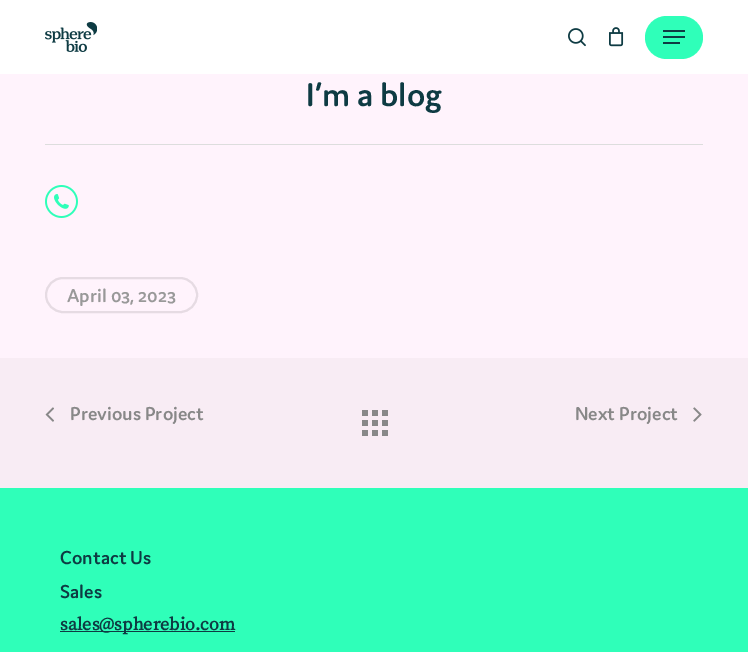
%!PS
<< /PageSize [748 652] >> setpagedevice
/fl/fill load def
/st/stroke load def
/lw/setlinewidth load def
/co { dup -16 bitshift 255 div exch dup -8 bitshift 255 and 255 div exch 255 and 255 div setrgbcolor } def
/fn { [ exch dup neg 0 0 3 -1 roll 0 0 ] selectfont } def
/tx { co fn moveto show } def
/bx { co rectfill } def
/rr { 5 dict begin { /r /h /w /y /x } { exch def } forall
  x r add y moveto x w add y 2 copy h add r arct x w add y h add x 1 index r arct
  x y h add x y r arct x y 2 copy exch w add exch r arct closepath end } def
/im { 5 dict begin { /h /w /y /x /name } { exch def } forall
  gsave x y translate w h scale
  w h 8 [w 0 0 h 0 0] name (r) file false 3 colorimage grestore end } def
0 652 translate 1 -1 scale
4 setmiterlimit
0 0 748 652 16#FFFFFF bx
(media/1.raw) 45 22 52 30 im
(media/2.raw) 568 28 18 19 im
(media/3.raw) 609 27 15 20 im
16#2FFFB9 co
645 16 58 43 21.5 rr fl
663 30 22 2 16#0E3B43 bx
663 42 17 2 16#0E3B43 bx
663 36 22 2 16#0E3B43 bx
0 74 748 284 16#FFF3FC bx
45 144 658 1 16#DDDDDD bx
(media/4.raw) 45 185 33 33 im
16#E6DBE3 co
2 lw
46 278 151 34 17 rr st
0 358 748 130 16#F8ECF4 bx
(media/5.raw) 45 407 9 15 im
(media/6.raw) 693 407 9 15 im
382 430 6 6 16#888888 bx
372 430 6 6 16#888888 bx
362 410 6 6 16#888888 bx
372 410 6 6 16#888888 bx
382 410 6 6 16#888888 bx
382 420 6 6 16#888888 bx
362 430 6 6 16#888888 bx
362 420 6 6 16#888888 bx
372 420 6 6 16#888888 bx
0 488 748 164 16#2FFFB9 bx
60 631 175 1 16#0E3B43 bx
(I’m a blog) 306 106 /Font-Medium 35 16#0E3B43 tx
(April 03, 2023) 67 302 /Font-Medium 20 16#999999 tx
(Previous Project) 70 420 /Font-Medium 20 16#888888 tx
(Next Project) 575 420 /Font-Medium 20 16#888888 tx
(Contact Us) 60 564 /Font-Medium 20 16#0E3B43 tx
(Sales) 60 598 /Font-Medium 20 16#0E3B43 tx
(sales@spherebio.com) 60 630 /SourceSerifPro-Bold 18 16#0E3B43 tx
showpage
